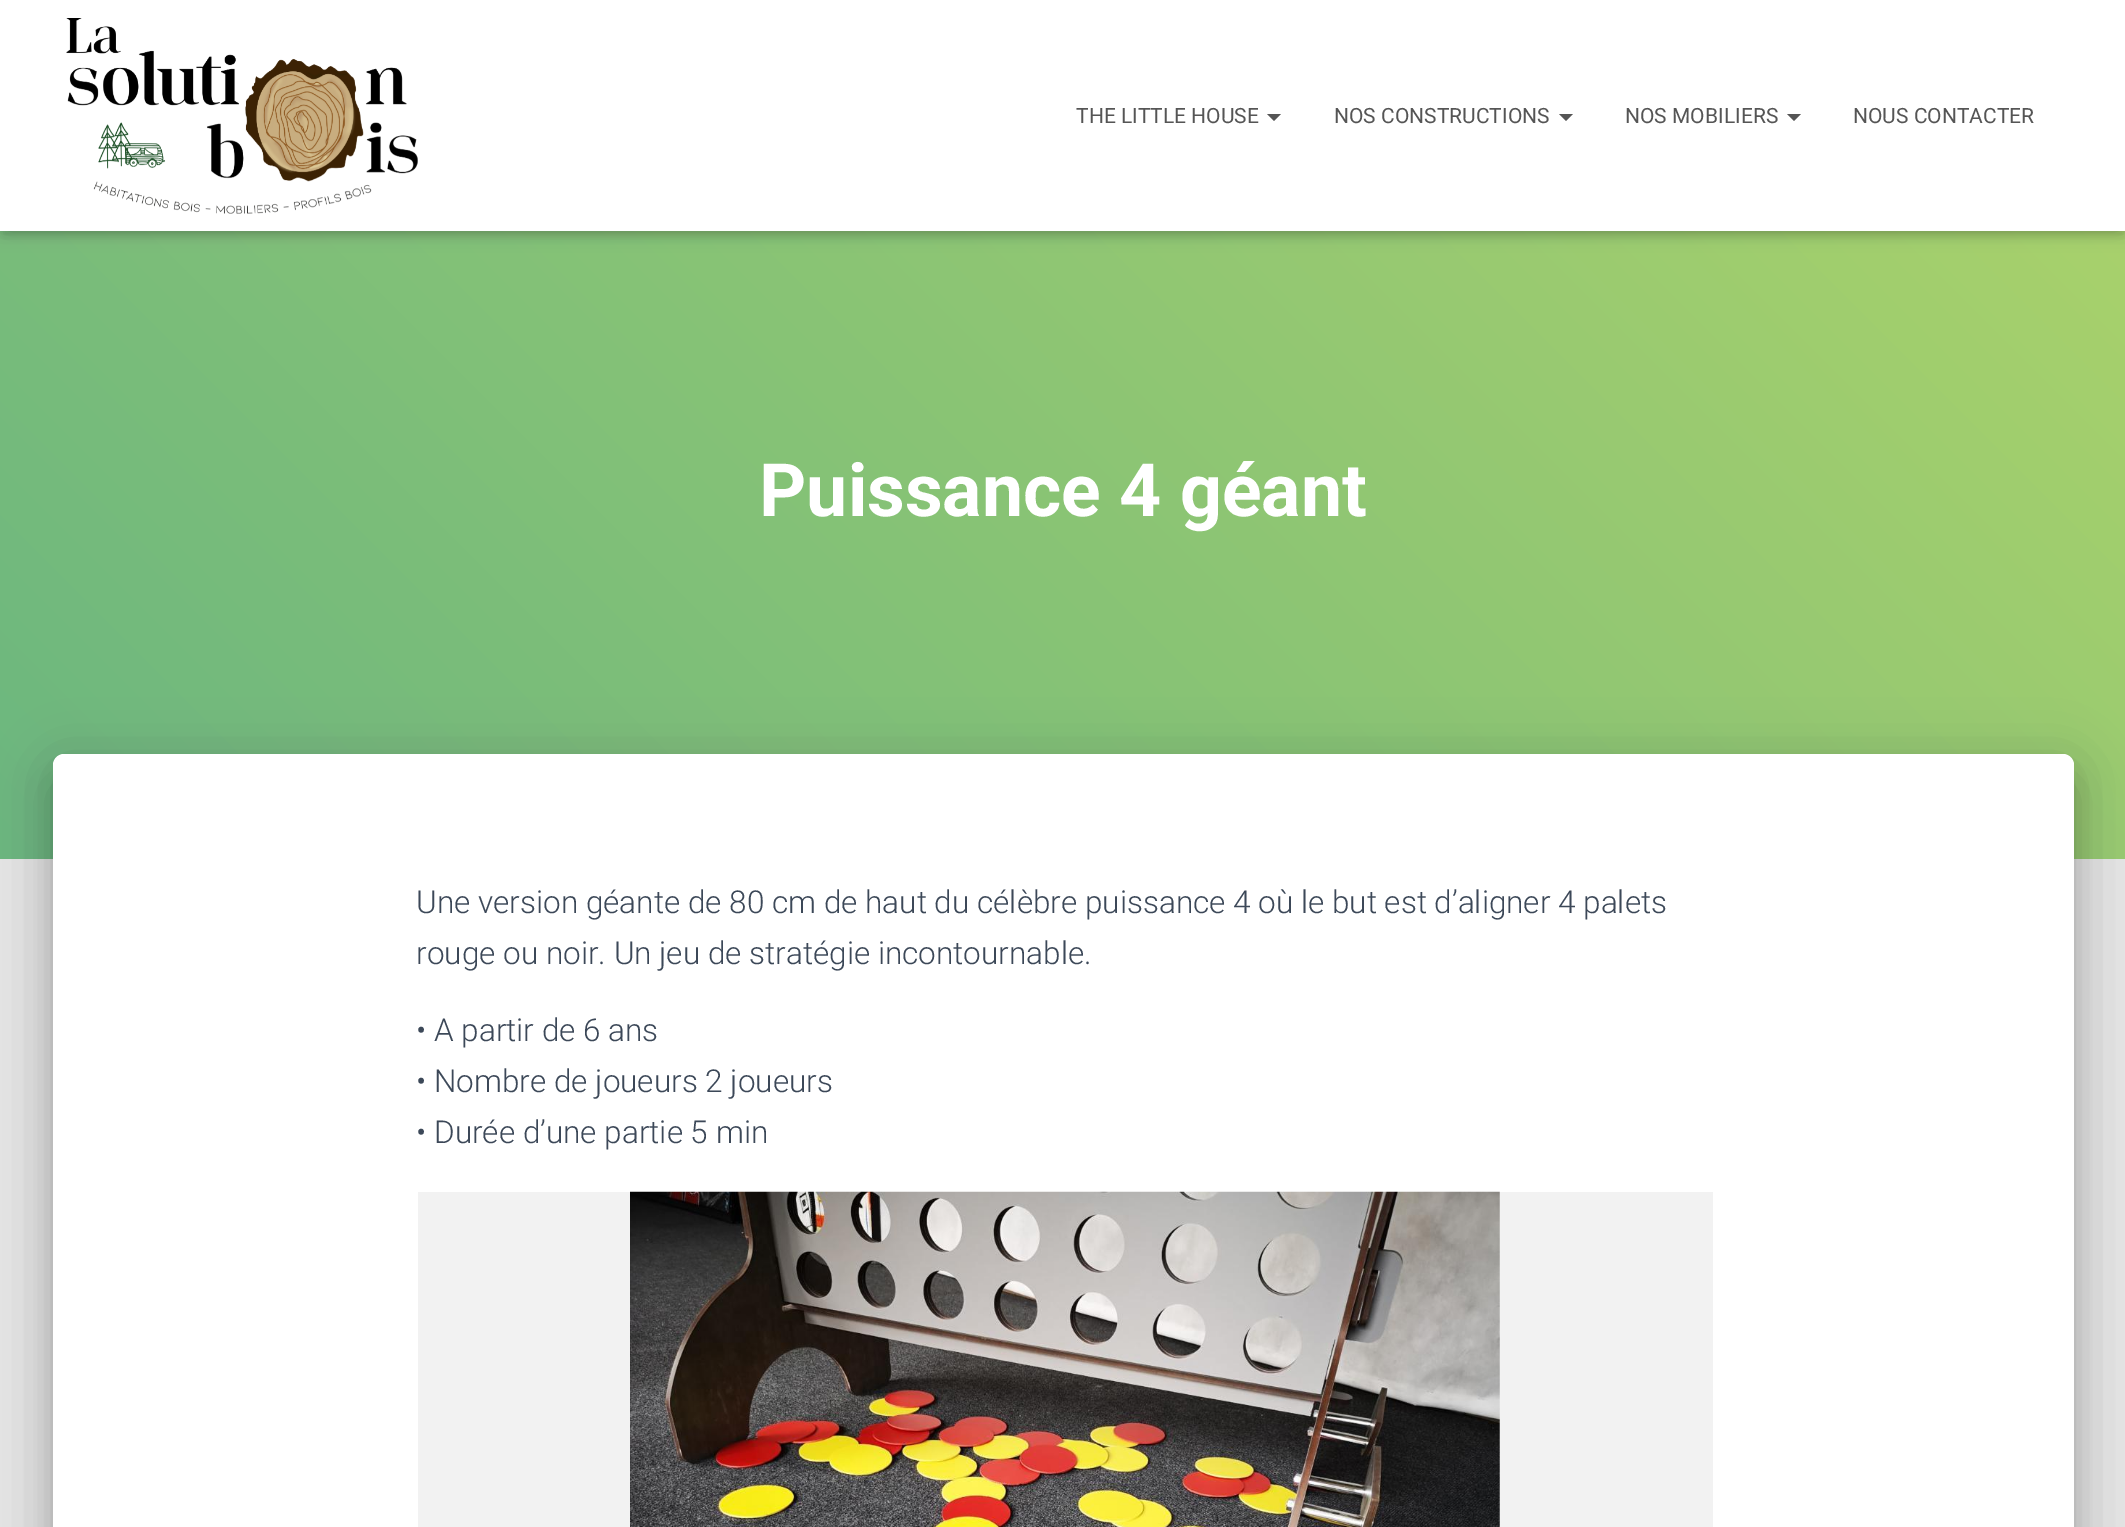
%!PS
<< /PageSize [2125 1527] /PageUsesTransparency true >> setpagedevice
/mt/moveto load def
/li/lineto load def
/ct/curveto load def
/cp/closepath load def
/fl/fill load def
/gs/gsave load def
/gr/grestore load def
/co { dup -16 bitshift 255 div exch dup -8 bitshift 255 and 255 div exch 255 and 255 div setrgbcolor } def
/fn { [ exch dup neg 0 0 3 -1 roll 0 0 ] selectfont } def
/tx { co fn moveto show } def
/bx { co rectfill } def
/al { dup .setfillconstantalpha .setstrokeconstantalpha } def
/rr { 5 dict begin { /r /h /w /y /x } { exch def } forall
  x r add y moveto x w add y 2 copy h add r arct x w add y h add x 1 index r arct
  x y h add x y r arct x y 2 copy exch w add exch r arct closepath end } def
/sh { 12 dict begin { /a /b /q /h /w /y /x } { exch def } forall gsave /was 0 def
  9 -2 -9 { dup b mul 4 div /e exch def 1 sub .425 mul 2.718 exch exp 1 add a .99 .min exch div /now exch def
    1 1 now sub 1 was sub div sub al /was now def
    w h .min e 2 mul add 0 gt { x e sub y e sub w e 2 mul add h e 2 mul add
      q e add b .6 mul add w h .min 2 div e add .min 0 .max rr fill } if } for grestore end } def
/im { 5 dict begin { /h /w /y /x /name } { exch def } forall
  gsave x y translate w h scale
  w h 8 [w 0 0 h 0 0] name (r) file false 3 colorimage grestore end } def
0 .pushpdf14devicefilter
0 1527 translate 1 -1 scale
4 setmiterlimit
0 0 2125 1527 16#E5E5E5 bx
gs 0 231 mt 2125 231 li 2125 859 li 0 859 li cp clip newpath
<< /ShadingType 2 /ColorSpace /DeviceRGB /Coords [317 1176 1810 -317] /Extend [true true] /Function << /FunctionType 2 /Domain [0 1] /C0 [.42 .718 .498] /C1 [.678 .827 .416] /N 1 >> >> shfill gr
16#000000 co
4 11 2119 224 0 4.5 .1 sh
0 2 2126 231 0 9 .12 sh
11 12 2105 210 0 9 .42 sh
0 0 2125 231 16#FFFFFF bx
(media/1.raw) 66 18 352 196 im
16#555555 co
1267 114 mt 1281 114 li 1274 121 li cp fl
1559 114 mt 1573 114 li 1566 121 li cp fl
1787 114 mt 1801 114 li 1794 121 li cp fl
16#000000 co
61 777 2004 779 2 9 .2 sh
44 756 2039 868 19 26 .12 sh
49 779 2028 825 14 21 .14 sh
16#FFFFFF co
64 754 mt 2063 754 li 2069 754 2074 759 2074 765 ct 2074 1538 li 53 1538 li 53 765 li 53 759 58 754 64 754 ct cp fl
418 1192 1295 335 16#F2F2F2 bx
(media/2.raw) 630 1191 870 336 im
(THE LITTLE HOUSE) 1076 123 /Roboto-Regular 21 16#555555 tx
(NOS CONSTRUCTIONS) 1334 123 /Roboto-Regular 21 16#555555 tx
(NOS MOBILIERS) 1625 123 /Roboto-Regular 21 16#555555 tx
(NOUS CONTACTER) 1853 123 /Roboto-Regular 21 16#555555 tx
(Puissance 4 géant) 759 516 /Roboto-Bold 73.5 16#FFFFFF tx
(Une version géante de 80 cm de haut du célèbre puissance 4 où le but est d’aligner 4 palets) 416 913 /Roboto-Light 31.5 16#3C4858 tx
(rouge ou noir. Un jeu de stratégie incontournable.) 416 964 /Roboto-Light 31.5 16#3C4858 tx
(• A partir de 6 ans) 416 1041 /Roboto-Light 31.5 16#3C4858 tx
(• Nombre de joueurs 2 joueurs) 416 1092 /Roboto-Light 31.5 16#3C4858 tx
(• Durée d’une partie 5 min) 416 1143 /Roboto-Light 31.5 16#3C4858 tx
.poppdf14devicefilter showpage
